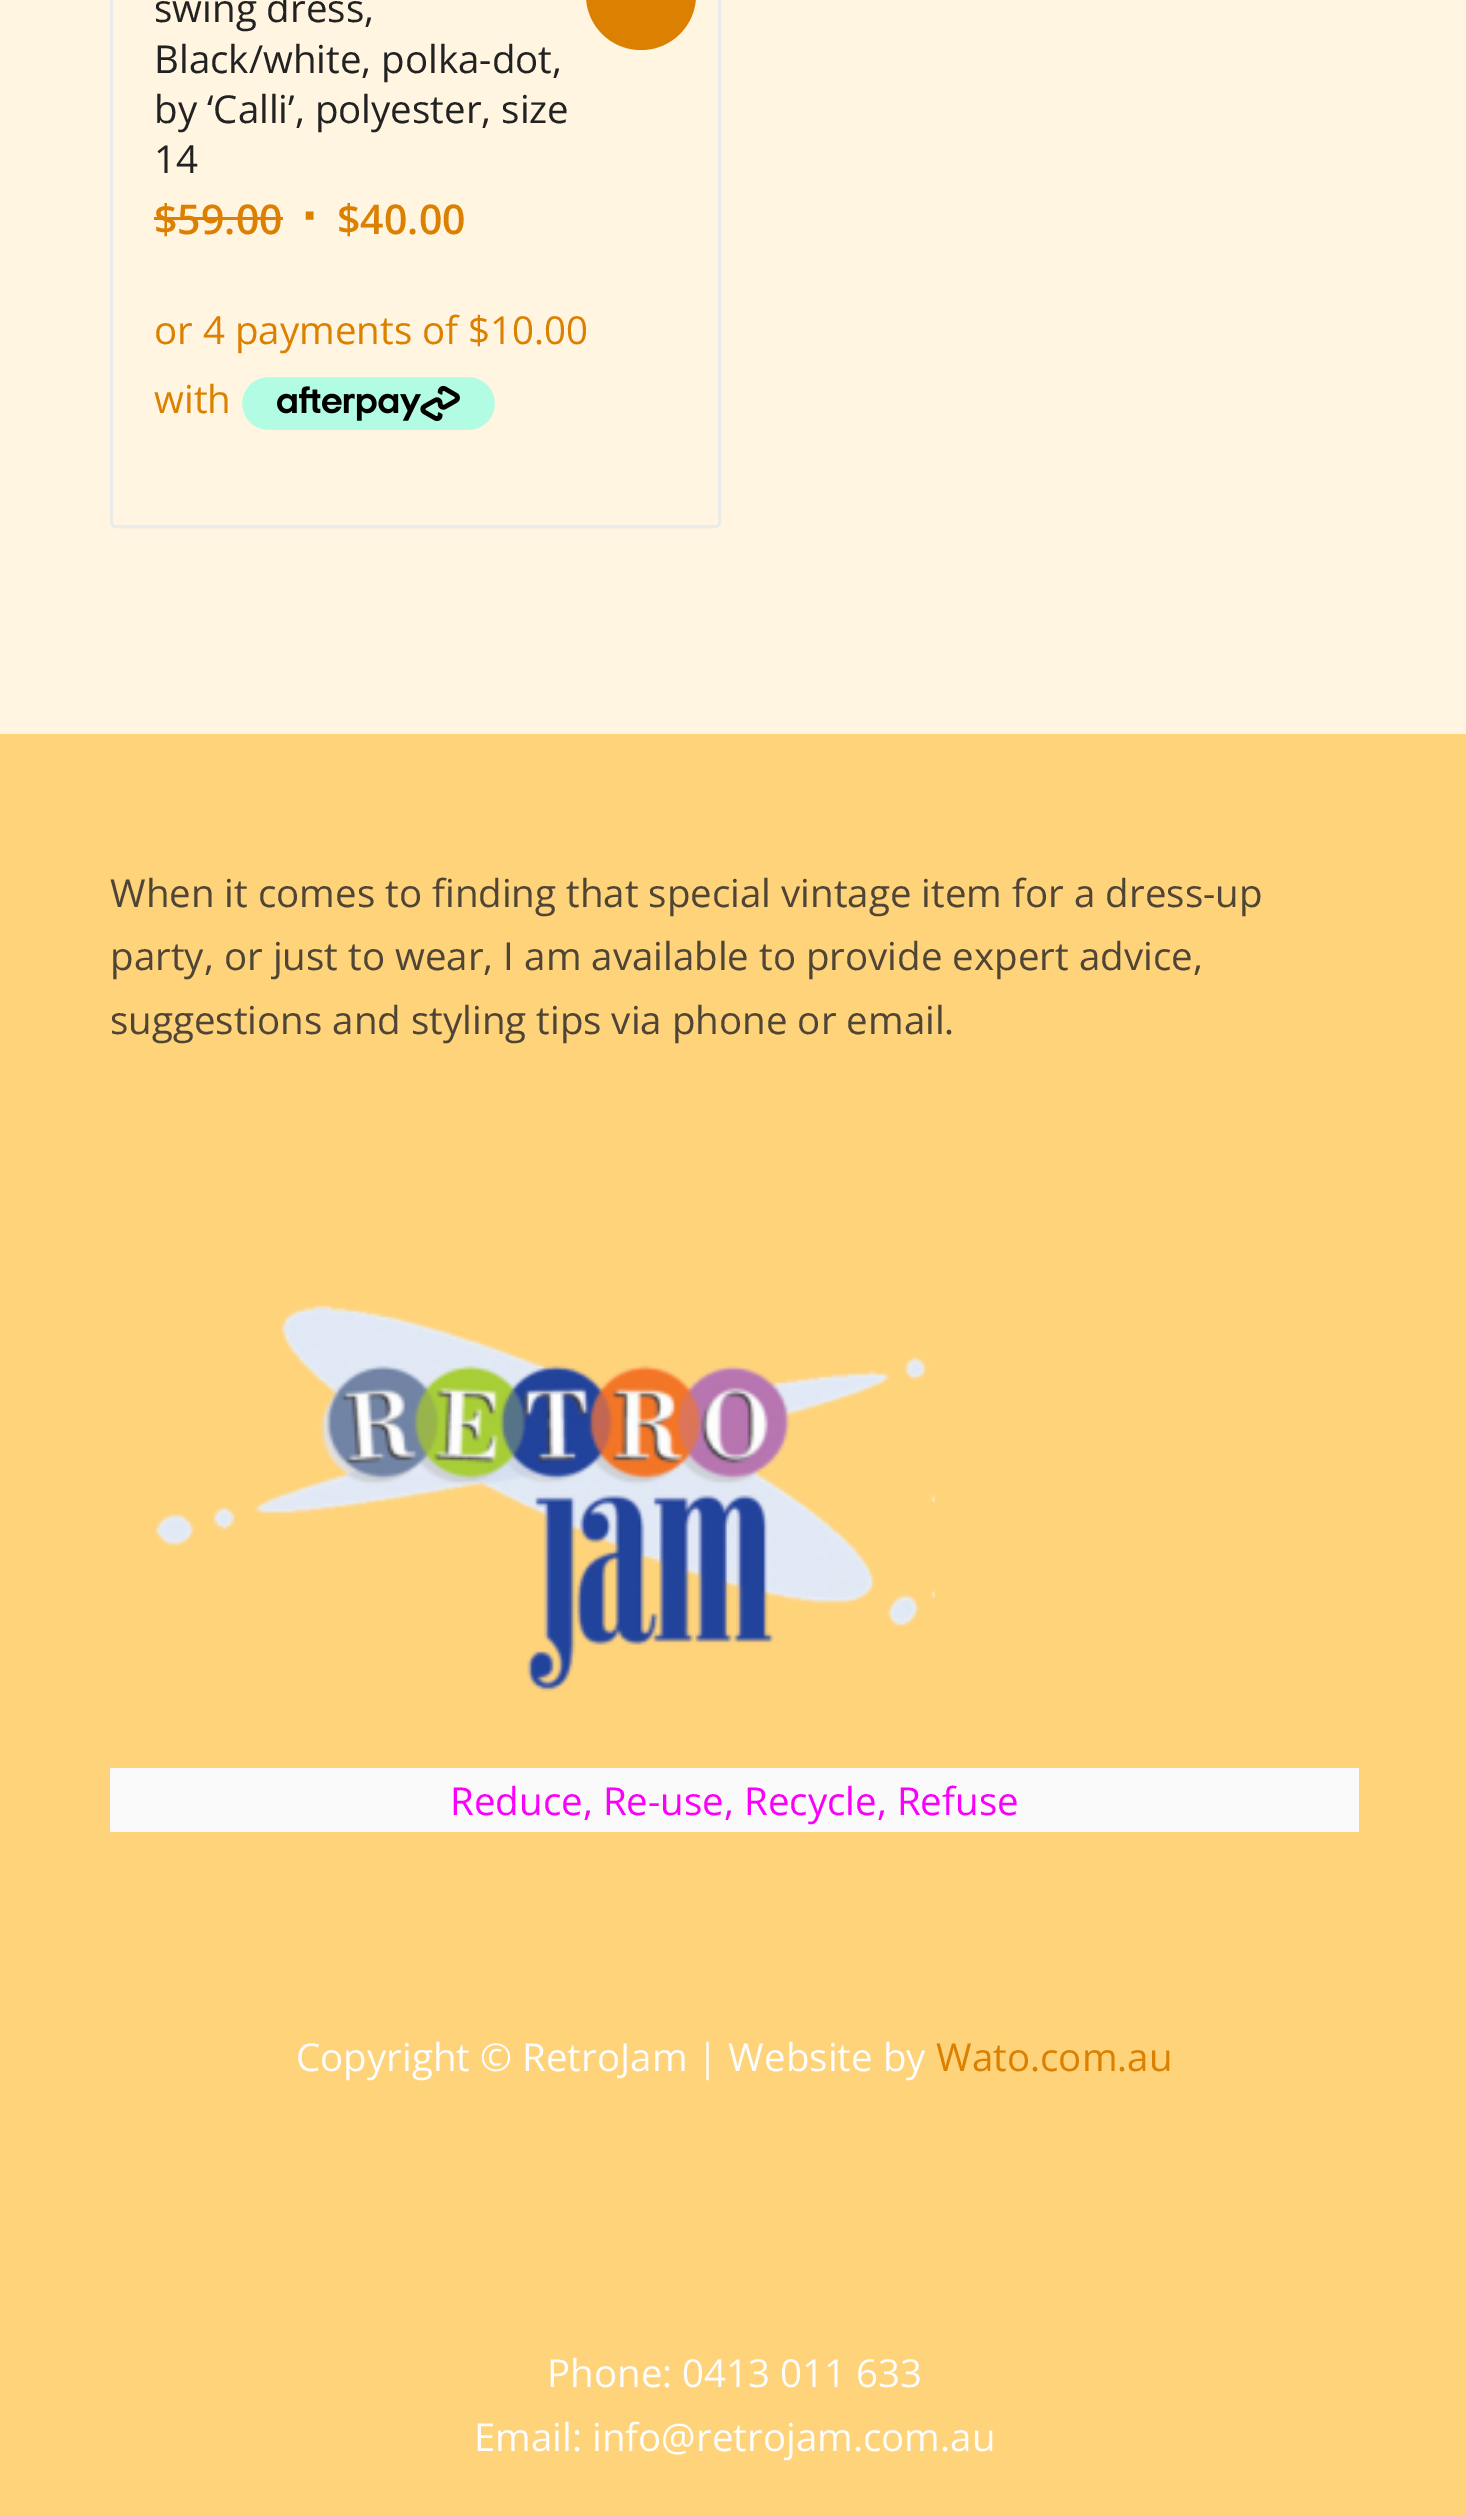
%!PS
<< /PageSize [1466 2515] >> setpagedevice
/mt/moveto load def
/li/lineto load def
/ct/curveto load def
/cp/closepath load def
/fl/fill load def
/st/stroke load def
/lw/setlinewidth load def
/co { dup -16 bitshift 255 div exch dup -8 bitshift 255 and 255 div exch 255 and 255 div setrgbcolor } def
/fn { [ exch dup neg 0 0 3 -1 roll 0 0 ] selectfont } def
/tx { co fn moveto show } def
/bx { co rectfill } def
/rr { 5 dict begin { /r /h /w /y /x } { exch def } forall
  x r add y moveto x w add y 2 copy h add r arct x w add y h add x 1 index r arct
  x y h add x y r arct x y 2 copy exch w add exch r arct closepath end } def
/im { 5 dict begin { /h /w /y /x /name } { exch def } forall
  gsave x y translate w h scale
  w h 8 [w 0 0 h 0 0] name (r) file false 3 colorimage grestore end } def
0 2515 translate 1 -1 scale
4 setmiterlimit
0 0 1466 2515 16#FFD37A bx
0 0 1466 734 16#FFF5E0 bx
16#EBEBEB co
3 lw
111.5 -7.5 608 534 4.5 rr st
16#FFF5E0 co
113 -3 mt 718 -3 li 718 522 li 718 523.5 716.5 525 715 525 ct 116 525 li 114.5 525 113 523.5 113 522 ct cp fl
16#DB8000 co
586 -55 110 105 55 rr fl
154 217 129 3 16#DB8000 bx
(media/1.raw) 242 377 253 53 im
(media/2.raw) 156 1305 779 387 im
110 1768 1249 64 16#FAFAFA bx
(swing dress,) 154 22 /OpenSans-Regular 38.5 16#222222 tx
(Black/white, polka-dot,) 154 73 /OpenSans-Regular 38.5 16#222222 tx
(by ‘Calli’, polyester, size) 154 123 /OpenSans-Regular 38.5 16#222222 tx
(14) 154 173 /OpenSans-Regular 38.5 16#222222 tx
($59.00) 154 234 /OpenSans-SemiBold 41 16#DB8000 tx
(∙) 302 234 /LiberationSans-Bold 55 16#DB8000 tx
($40.00) 337 234 /OpenSans-SemiBold 41 16#DB8000 tx
(or 4 payments of $10.00) 154 344 /OpenSans-Regular 38.5 16#DB8000 tx
(with) 154 413 /OpenSans-Regular 38.5 16#DB8000 tx
(When it comes to finding that special vintage item for a dress-up) 110 907 /OpenSans-Regular 38.5 16#4F4537 tx
(party, or just to wear, I am available to provide expert advice,) 110 970 /OpenSans-Regular 38.5 16#4F4537 tx
(suggestions and styling tips via phone or email.) 110 1034 /OpenSans-Regular 38.5 16#4F4537 tx
(Reduce, Re-use, Recycle, Refuse) 450 1815 /OpenSans-Regular 38.5 16#FA00FA tx
(Copyright © RetroJam | Website by) 296 2071 /OpenSans-Regular 38.5 16#FDFDFD tx
(Wato.com.au) 936 2071 /OpenSans-Regular 38.5 16#DB8000 tx
(Phone: 0413 011 633) 547 2387 /OpenSans-Regular 38.5 16#FDFDFD tx
(Email: info@retrojam.com.au) 474 2451 /OpenSans-Regular 38.5 16#FDFDFD tx
showpage
